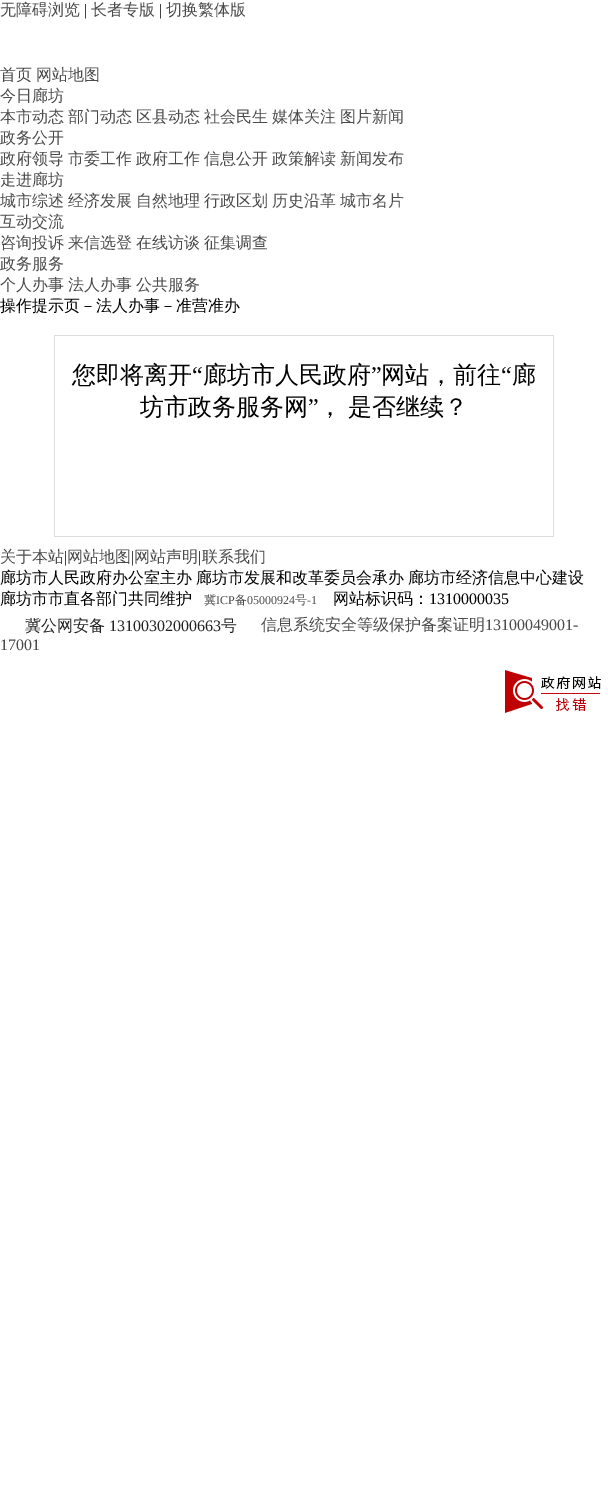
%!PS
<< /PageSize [608 1498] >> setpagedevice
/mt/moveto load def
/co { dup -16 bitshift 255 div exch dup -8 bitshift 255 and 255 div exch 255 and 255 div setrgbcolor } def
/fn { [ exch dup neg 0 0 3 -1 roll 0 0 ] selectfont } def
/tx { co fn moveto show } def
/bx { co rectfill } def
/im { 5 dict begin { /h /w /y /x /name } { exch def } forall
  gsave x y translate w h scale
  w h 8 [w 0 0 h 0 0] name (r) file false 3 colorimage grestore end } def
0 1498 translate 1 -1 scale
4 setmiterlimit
0 0 608 1498 16#FFFFFF bx
54 335 500 1 16#DDDDDD bx
553 335 1 202 16#DDDDDD bx
54 536 500 1 16#DDDDDD bx
54 335 1 202 16#DDDDDD bx
(media/1.raw) 505 670 96 43 im
(无障碍浏览) 0 15 /WenQuanYiZenHei-Medium 16 16#4A4A4A tx
(|) 84 15 /LiberationSerif-Regular 16 16#000000 tx
(长者专版) 91 15 /WenQuanYiZenHei-Medium 16 16#4A4A4A tx
(|) 159 15 /LiberationSerif-Regular 16 16#000000 tx
(切换繁体版) 166 15 /WenQuanYiZenHei-Medium 16 16#4A4A4A tx
(首页) 0 80 /WenQuanYiZenHei-Medium 16 16#4A4A4A tx
(网站地图) 36 80 /WenQuanYiZenHei-Medium 16 16#4A4A4A tx
(今日廊坊) 0 101 /WenQuanYiZenHei-Medium 16 16#4A4A4A tx
(本市动态) 0 122 /WenQuanYiZenHei-Medium 16 16#4A4A4A tx
(部门动态) 68 122 /WenQuanYiZenHei-Medium 16 16#4A4A4A tx
(区县动态) 136 122 /WenQuanYiZenHei-Medium 16 16#4A4A4A tx
(社会民生) 204 122 /WenQuanYiZenHei-Medium 16 16#4A4A4A tx
(媒体关注) 272 122 /WenQuanYiZenHei-Medium 16 16#4A4A4A tx
(图片新闻) 340 122 /WenQuanYiZenHei-Medium 16 16#4A4A4A tx
(政务公开) 0 143 /WenQuanYiZenHei-Medium 16 16#4A4A4A tx
(政府领导) 0 164 /WenQuanYiZenHei-Medium 16 16#4A4A4A tx
(市委工作) 68 164 /WenQuanYiZenHei-Medium 16 16#4A4A4A tx
(政府工作) 136 164 /WenQuanYiZenHei-Medium 16 16#4A4A4A tx
(信息公开) 204 164 /WenQuanYiZenHei-Medium 16 16#4A4A4A tx
(政策解读) 272 164 /WenQuanYiZenHei-Medium 16 16#4A4A4A tx
(新闻发布) 340 164 /WenQuanYiZenHei-Medium 16 16#4A4A4A tx
(走进廊坊) 0 185 /WenQuanYiZenHei-Medium 16 16#4A4A4A tx
(城市综述) 0 206 /WenQuanYiZenHei-Medium 16 16#4A4A4A tx
(经济发展) 68 206 /WenQuanYiZenHei-Medium 16 16#4A4A4A tx
(自然地理) 136 206 /WenQuanYiZenHei-Medium 16 16#4A4A4A tx
(行政区划) 204 206 /WenQuanYiZenHei-Medium 16 16#4A4A4A tx
(历史沿革) 272 206 /WenQuanYiZenHei-Medium 16 16#4A4A4A tx
(城市名片) 340 206 /WenQuanYiZenHei-Medium 16 16#4A4A4A tx
(互动交流) 0 227 /WenQuanYiZenHei-Medium 16 16#4A4A4A tx
(咨询投诉) 0 248 /WenQuanYiZenHei-Medium 16 16#4A4A4A tx
(来信选登) 68 248 /WenQuanYiZenHei-Medium 16 16#4A4A4A tx
(在线访谈) 136 248 /WenQuanYiZenHei-Medium 16 16#4A4A4A tx
(征集调查) 204 248 /WenQuanYiZenHei-Medium 16 16#4A4A4A tx
(政务服务) 0 269 /WenQuanYiZenHei-Medium 16 16#4A4A4A tx
(个人办事) 0 290 /WenQuanYiZenHei-Medium 16 16#4A4A4A tx
(法人办事) 68 290 /WenQuanYiZenHei-Medium 16 16#4A4A4A tx
(公共服务) 136 290 /WenQuanYiZenHei-Medium 16 16#4A4A4A tx
(操作提示页－法人办事－准营准办) 0 311 /WenQuanYiZenHei-Medium 16 16#000000 tx
(您即将离开) 72 383 /WenQuanYiZenHei-Medium 24 16#000000 tx
(“) 192 383 /LiberationSerif-Regular 24 16#000000 tx
(廊坊市人民政府) 203 383 /WenQuanYiZenHei-Medium 24 16#000000 tx
(”) 371 383 /LiberationSerif-Regular 24 16#000000 tx
(网站，前往) 381 383 /WenQuanYiZenHei-Medium 24 16#000000 tx
(“) 501 383 /LiberationSerif-Regular 24 16#000000 tx
(廊) 512 383 /WenQuanYiZenHei-Medium 24 16#000000 tx
(坊市政务服务网) 140 415 /WenQuanYiZenHei-Medium 24 16#000000 tx
(”) 308 415 /LiberationSerif-Regular 24 16#000000 tx
/WenQuanYiZenHei-Medium 24 fn
318 415 mt -1 0 32 (， 是否继续？) widthshow
(关于本站) 0 562 /WenQuanYiZenHei-Medium 16 16#4A4A4A tx
(|) 64 562 /LiberationSerif-Regular 16 16#000000 tx
(网站地图) 67 562 /WenQuanYiZenHei-Medium 16 16#4A4A4A tx
(|) 131 562 /LiberationSerif-Regular 16 16#000000 tx
(网站声明) 134 562 /WenQuanYiZenHei-Medium 16 16#4A4A4A tx
(|) 198 562 /LiberationSerif-Regular 16 16#000000 tx
(联系我们) 202 562 /WenQuanYiZenHei-Medium 16 16#4A4A4A tx
16#000000 co
0 583 mt -1 0 32 (廊坊市人民政府办公室主办 廊坊市发展和改革委员会承办 廊坊市经济信息中心建设) widthshow
(廊坊市市直各部门共同维护) 0 604 /WenQuanYiZenHei-Medium 16 16#000000 tx
(冀) 204 604 /WenQuanYiZenHei-Medium 12 16#4A4A4A tx
(ICP) 216 604 /LiberationSerif-Regular 12 16#4A4A4A tx
(备) 235 604 /WenQuanYiZenHei-Medium 12 16#4A4A4A tx
(05000924) 247 604 /LiberationSerif-Regular 12 16#4A4A4A tx
(号) 295 604 /WenQuanYiZenHei-Medium 12 16#4A4A4A tx
(-1) 307 604 /LiberationSerif-Regular 12 16#4A4A4A tx
(网站标识码：) 333 604 /WenQuanYiZenHei-Medium 16 16#000000 tx
(1310000035) 429 604 /LiberationSerif-Regular 16 16#000000 tx
(冀公网安备) 25 631 /WenQuanYiZenHei-Medium 16 16#222222 tx
(13100302000663) 109 631 /LiberationSerif-Regular 16 16#222222 tx
(号) 221 631 /WenQuanYiZenHei-Medium 16 16#222222 tx
(信息系统安全等级保护备案证明) 261 630 /WenQuanYiZenHei-Medium 16 16#4A4A4A tx
(13100049001-) 485 630 /LiberationSerif-Regular 16 16#4A4A4A tx
(17001) 0 650 /LiberationSerif-Regular 16 16#4A4A4A tx
showpage
